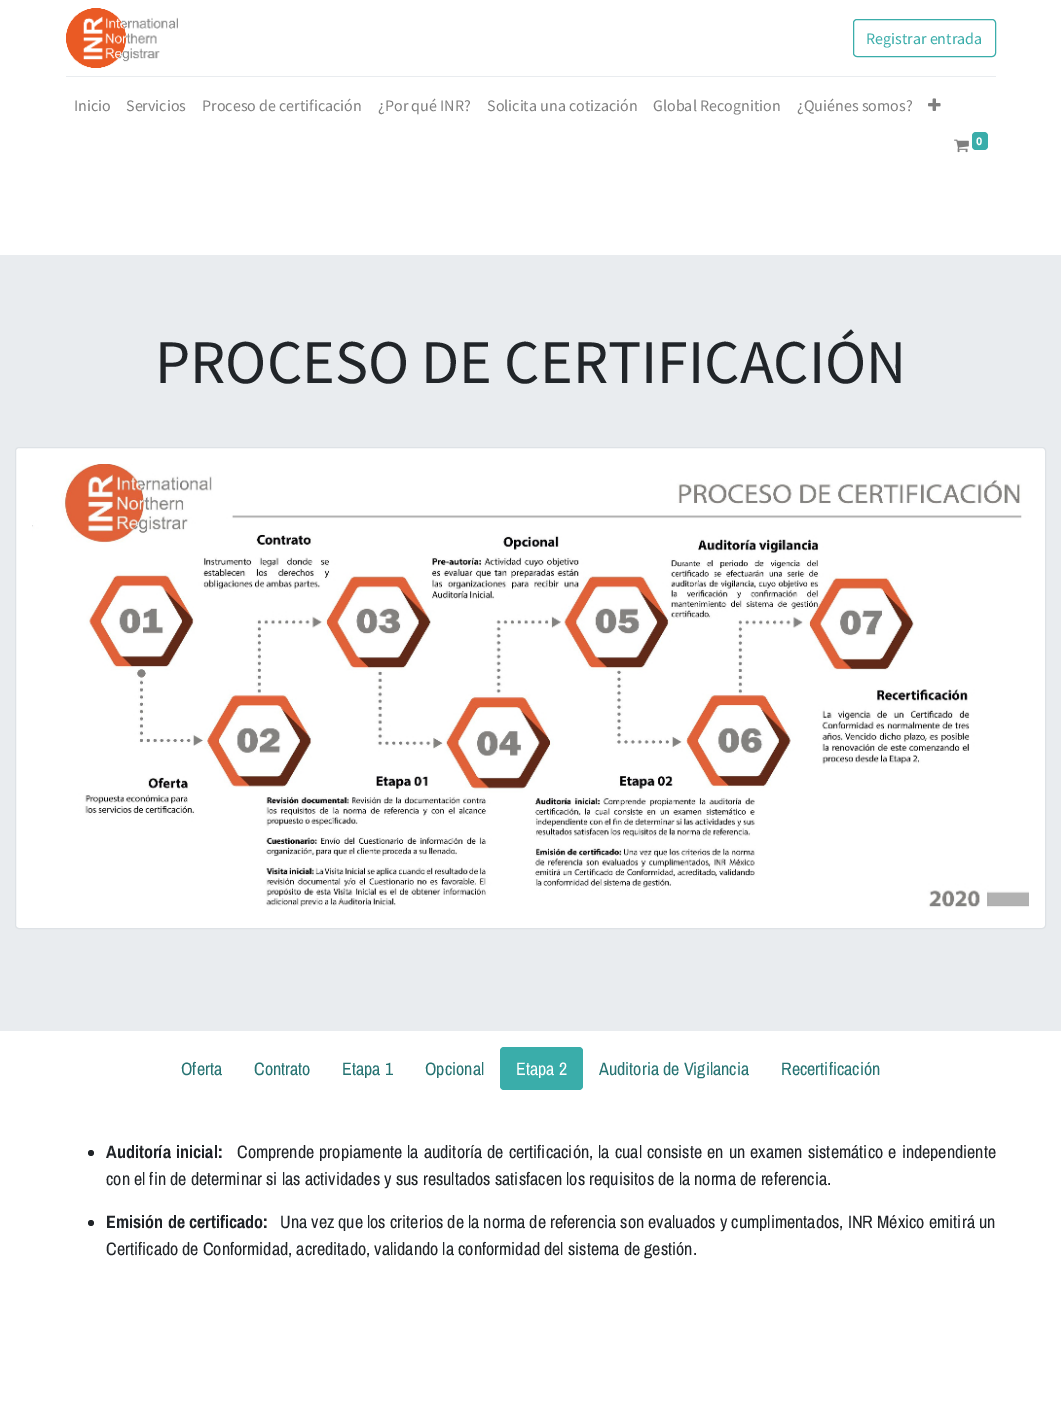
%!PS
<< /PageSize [1061 1410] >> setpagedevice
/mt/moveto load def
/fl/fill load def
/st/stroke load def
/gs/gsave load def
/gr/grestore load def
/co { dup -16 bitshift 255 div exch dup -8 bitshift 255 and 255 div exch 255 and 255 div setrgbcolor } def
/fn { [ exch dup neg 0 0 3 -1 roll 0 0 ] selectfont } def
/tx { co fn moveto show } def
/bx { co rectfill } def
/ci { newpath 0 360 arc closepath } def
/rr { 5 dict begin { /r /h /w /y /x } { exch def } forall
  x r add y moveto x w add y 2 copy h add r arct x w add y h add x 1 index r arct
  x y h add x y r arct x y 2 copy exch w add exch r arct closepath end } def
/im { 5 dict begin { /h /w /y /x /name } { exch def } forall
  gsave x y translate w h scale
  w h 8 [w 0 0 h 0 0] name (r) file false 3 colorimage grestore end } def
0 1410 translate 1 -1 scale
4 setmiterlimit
0 0 1061 1410 16#FFFFFF bx
(media/1.raw) 66 8 112 60 im
16#3AADAA co
853.5 19.5 142 37 3.5 rr st
66 76 930 1 16#E9ECEF bx
(media/2.raw) 928 98 13 13 im
(media/3.raw) 954 139 15 14 im
16#3AADAA co
972 132 16 18 4 rr fl
0 255 1061 776 16#E9ECEF bx
16#FFFFFF co
15.5 447.5 1030 481 3.5 rr gs fl gr
16#DEE2E6 co
st
(media/4.raw) 32 464 997 444 im
16#3AADAA co
500 1047 83 43 4 rr fl
16#212529 co
91 1153 3 ci fl
91 1223 3 ci fl
(Registrar entrada) 866 44 /SourceSansPro-Regular 16 16#3AADAA tx
(Inicio) 74 111 /SourceSansPro-Regular 16 16#808080 tx
(Servicios) 126 111 /SourceSansPro-Regular 16 16#808080 tx
(Proceso de certificación) 202 111 /SourceSansPro-Regular 16 16#808080 tx
(¿Por qué INR?) 378 111 /SourceSansPro-Regular 16 16#808080 tx
(Solicita una cotización) 487 111 /SourceSansPro-Regular 16 16#808080 tx
(Global Recognition) 653 111 /SourceSansPro-Regular 16 16#808080 tx
(¿Quiénes somos?) 797 111 /SourceSansPro-Regular 16 16#808080 tx
(0) 976 145 /SourceSansPro-Bold 12 16#FFFFFF tx
(PROCESO DE CERTIFICACIÓN) 155 383 /SourceSansPro-Regular 62 16#212529 tx
(Oferta) 181 1075 /ArchivoNarrow-Regular 18 16#267372 tx
(Contrato) 254 1075 /ArchivoNarrow-Regular 18 16#267372 tx
(Etapa 1) 342 1075 /ArchivoNarrow-Regular 18 16#267372 tx
(Opcional) 425 1075 /ArchivoNarrow-Regular 18 16#267372 tx
(Etapa 2) 516 1075 /ArchivoNarrow-Regular 18 16#FFFFFF tx
(Auditoria de Vigilancia) 599 1075 /ArchivoNarrow-Regular 18 16#267372 tx
(Recertificación) 781 1075 /ArchivoNarrow-Regular 18 16#267372 tx
/ArchivoNarrow-Bold 18 fn
16#212529 co
106 1158 mt 1 0 32 (Auditoría inicial:) widthshow
/ArchivoNarrow-Regular 18 fn
237 1158 mt 1 0 32 (Comprende propiamente la auditoría de certificación, la cual consiste en un examen sistemático e independiente) widthshow
(con el fin de determinar si las actividades y sus resultados satisfacen los requisitos de la norma de referencia.) 106 1185 /ArchivoNarrow-Regular 18 16#212529 tx
(Emisión de certificado:) 106 1228 /ArchivoNarrow-Bold 18 16#212529 tx
(Una vez que los criterios de la norma de referencia son evaluados y cumplimentados, INR México emitirá un) 280 1228 /ArchivoNarrow-Regular 18 16#212529 tx
(Certificado de Conformidad, acreditado, validando la conformidad del sistema de gestión.) 106 1255 /ArchivoNarrow-Regular 18 16#212529 tx
showpage
